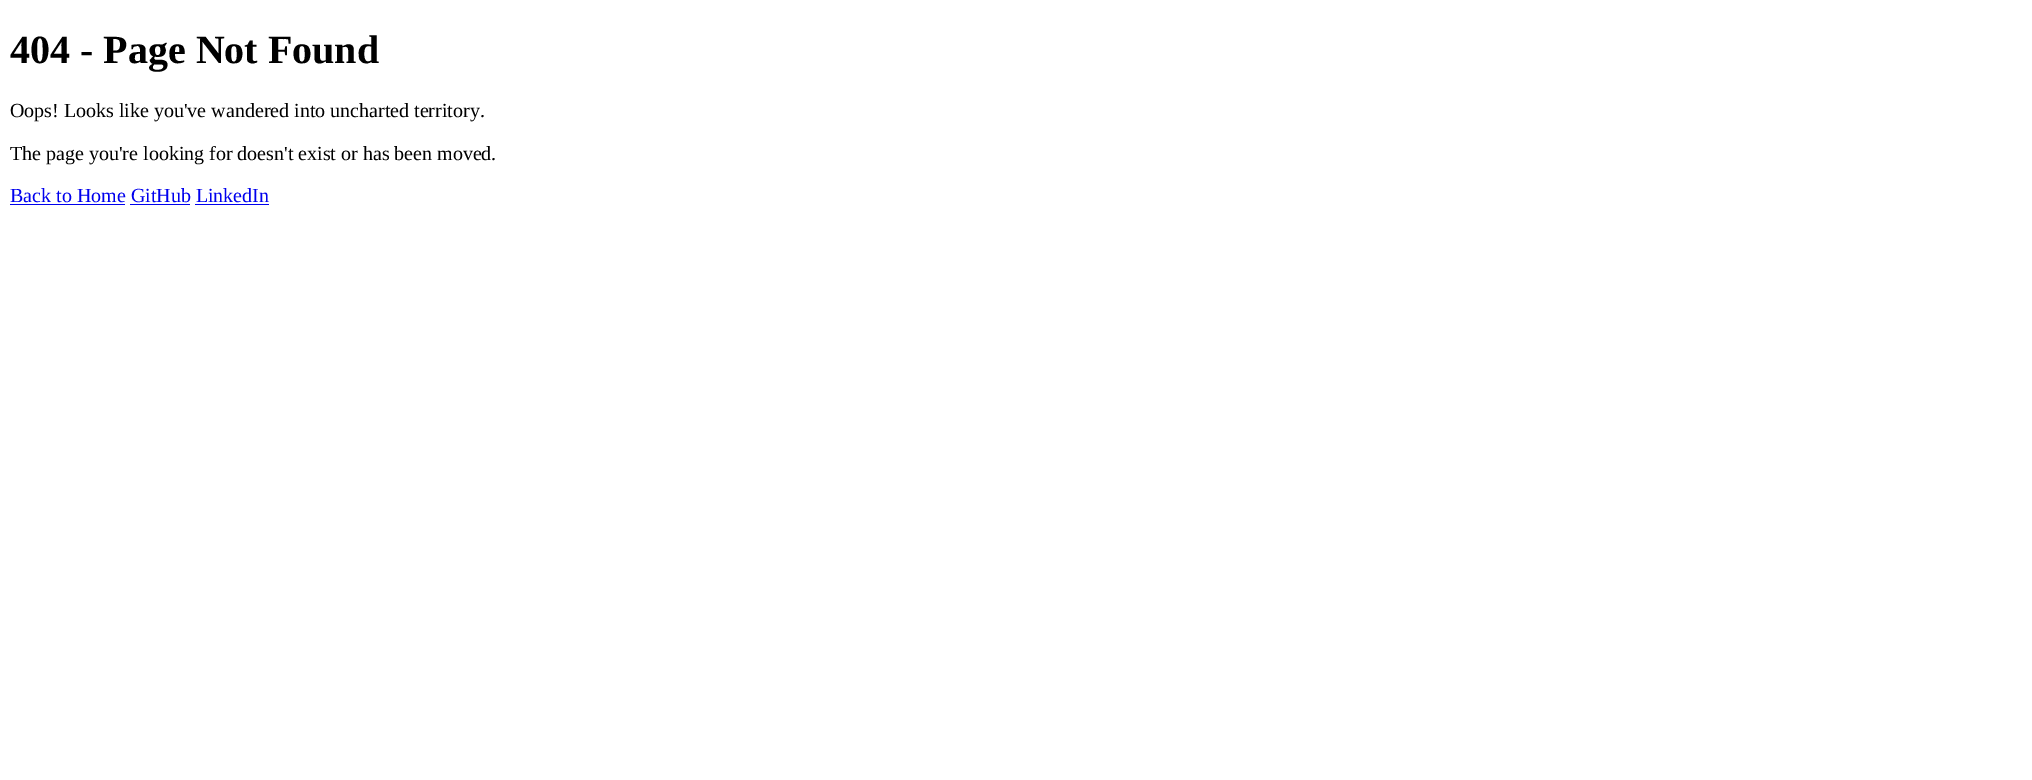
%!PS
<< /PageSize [2032 780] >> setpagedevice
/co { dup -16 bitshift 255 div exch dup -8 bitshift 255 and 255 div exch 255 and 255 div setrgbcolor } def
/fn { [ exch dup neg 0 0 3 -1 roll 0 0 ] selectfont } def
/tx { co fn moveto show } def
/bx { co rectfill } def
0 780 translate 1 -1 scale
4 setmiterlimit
0 0 2032 780 16#FFFFFF bx
10 204 115 1 16#0000EE bx
130 204 60 1 16#0000EE bx
195 204 74 1 16#0000EE bx
(404 - Page Not Found) 10 63 /LiberationSerif-Bold 40 16#000000 tx
(Oops! Looks like you've wandered into uncharted territory.) 10 117 /LiberationSerif-Regular 20 16#000000 tx
(The page you're looking for doesn't exist or has been moved.) 10 160 /LiberationSerif-Regular 20 16#000000 tx
(Back to Home GitHub LinkedIn) 10 202 /LiberationSerif-Regular 20 16#0000EE tx
showpage
